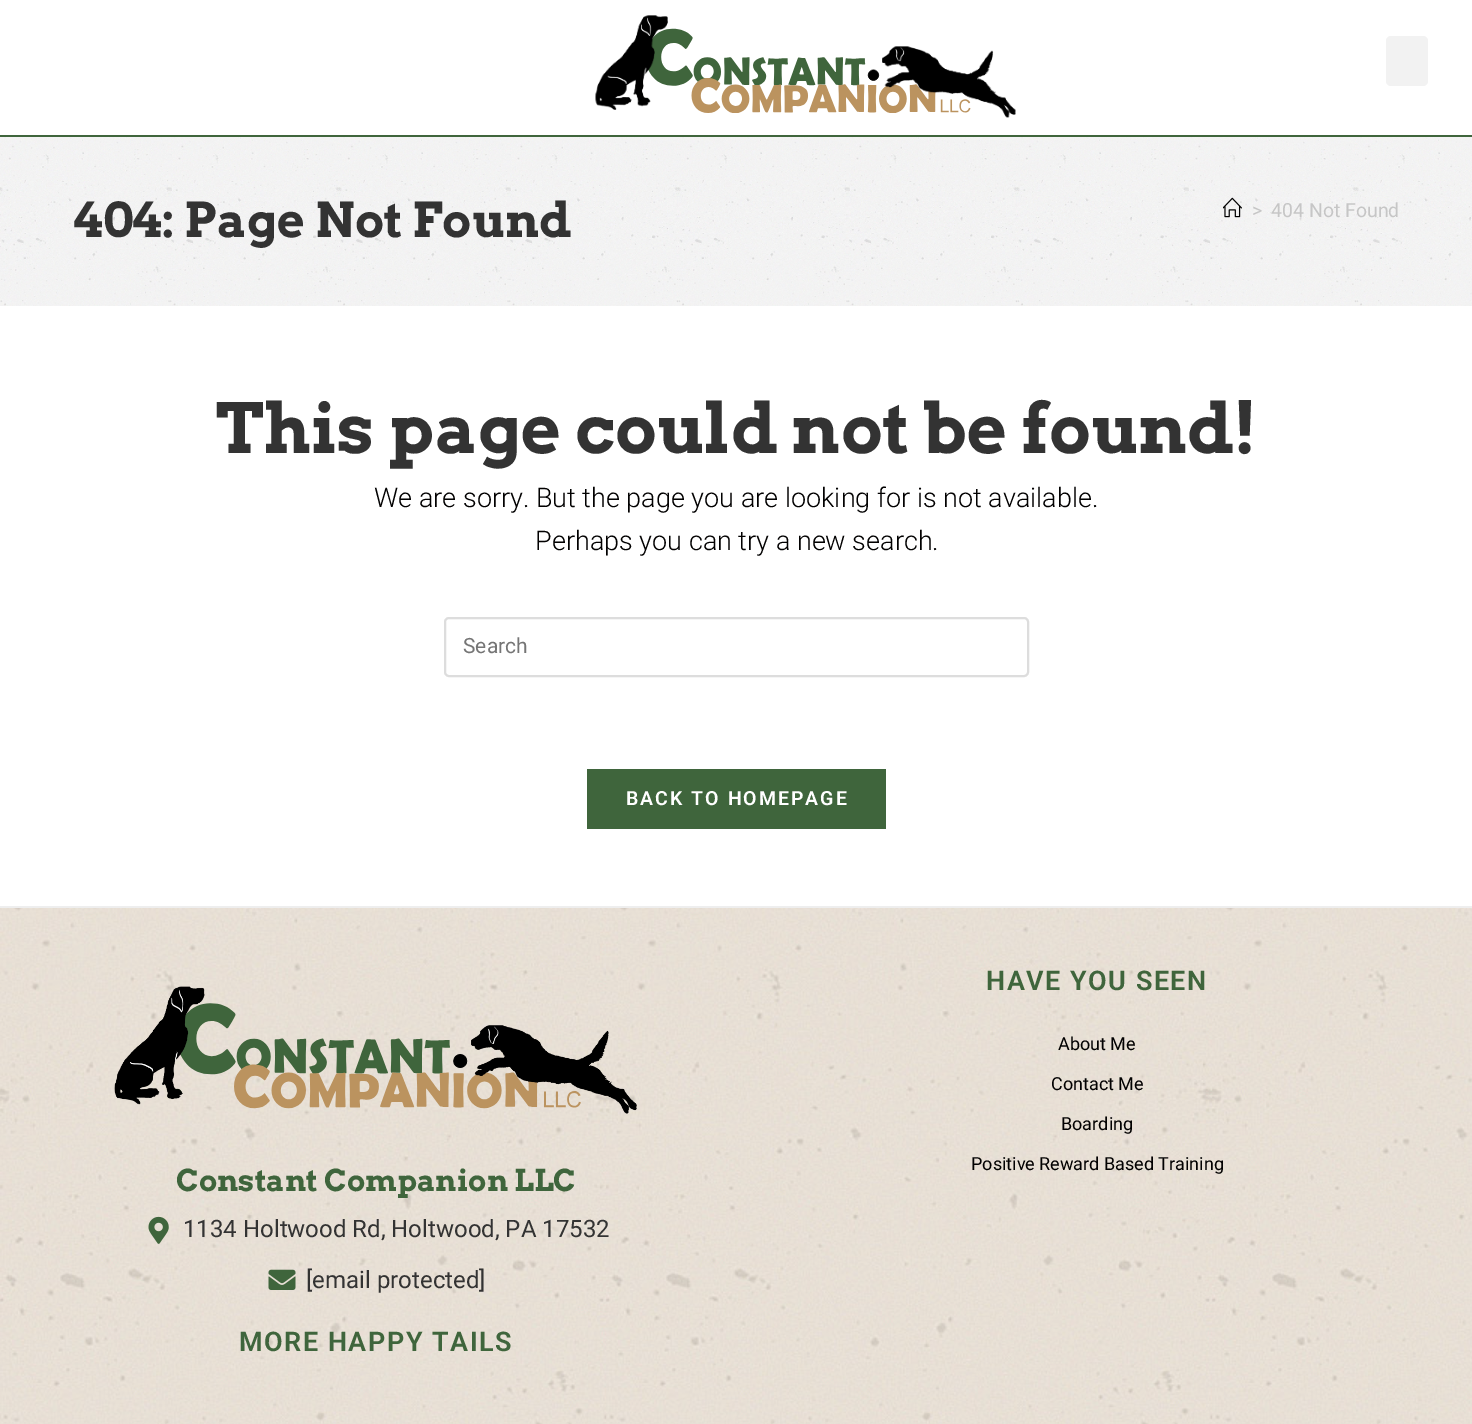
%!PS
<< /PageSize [1472 1424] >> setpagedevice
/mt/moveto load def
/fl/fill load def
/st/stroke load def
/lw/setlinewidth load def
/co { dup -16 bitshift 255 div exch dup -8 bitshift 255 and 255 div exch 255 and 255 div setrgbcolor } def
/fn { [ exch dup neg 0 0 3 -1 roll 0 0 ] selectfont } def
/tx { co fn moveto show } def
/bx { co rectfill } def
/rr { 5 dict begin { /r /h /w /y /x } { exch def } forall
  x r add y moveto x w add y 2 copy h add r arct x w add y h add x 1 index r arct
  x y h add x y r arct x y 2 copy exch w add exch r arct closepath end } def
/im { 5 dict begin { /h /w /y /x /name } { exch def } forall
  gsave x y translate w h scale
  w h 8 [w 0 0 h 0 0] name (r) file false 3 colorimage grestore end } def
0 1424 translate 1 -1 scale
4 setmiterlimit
0 0 1472 1424 16#FFFFFF bx
(media/1.raw) 595 15 421 103 im
16#F2F2F2 co
1386 36 42 50 5 rr fl
0 135 1472 2 16#3F653C bx
(media/2.raw) 0 137 1472 169 im
(media/3.raw) 1223 197 19 21 im
16#DDDDDD co
2 lw
445 618 583 58 4 rr st
587 769 299 60 16#3F653C bx
(media/4.raw) 0 908 1472 516 im
0 906 1472 2 16#EEEEEE bx
(media/5.raw) 114 986 523 128 im
(media/6.raw) 148 1216 21 28 im
(media/7.raw) 268 1269 28 21 im
(404: Page Not Found) 74 237 /Arvo-Bold 48 16#333333 tx
(>) 1252 217 /Roboto-Regular 19.5 16#C6C6C6 tx
(404 Not Found) 1271 217 /Roboto-Regular 19.5 16#C6C6C6 tx
(This page could not be found!) 216 453 /Arvo-Bold 69 16#333333 tx
(We are sorry. But the page you are looking for is not available.) 374 507 /Roboto-Light 27 16#020101 tx
(Perhaps you can try a new search.) 535 550 /Roboto-Light 27 16#020101 tx
(Search) 463 653 /Roboto-Regular 21 16#757575 tx
/Roboto-SemiBold 19.5 fn
16#FFFFFF co
626 805 mt 2 0 (BACK TO HOMEPAGE) ashow
/Roboto-SemiBold 27 fn
16#3F653C co
986 990 mt 1.5 0 (HAVE YOU SEEN) ashow
(About Me) 1058 1050 /Roboto-Regular 18 16#020101 tx
(Contact Me) 1051 1090 /Roboto-Regular 18 16#020101 tx
(Boarding) 1061 1130 /Roboto-Regular 18 16#020101 tx
(Positive Reward Based Training) 971 1170 /Roboto-Regular 18 16#020101 tx
(Constant Companion LLC) 176 1191 /Arvo-Bold 30 16#3F653C tx
(1134 Holtwood Rd, Holtwood, PA 17532) 183 1237 /Roboto-Regular 24 16#333333 tx
([email protected]) 306 1288 /Roboto-Regular 24 16#333333 tx
/Roboto-SemiBold 27 fn
16#3F653C co
239 1351 mt 1.5 0 (MORE HAPPY TAILS) ashow
showpage
